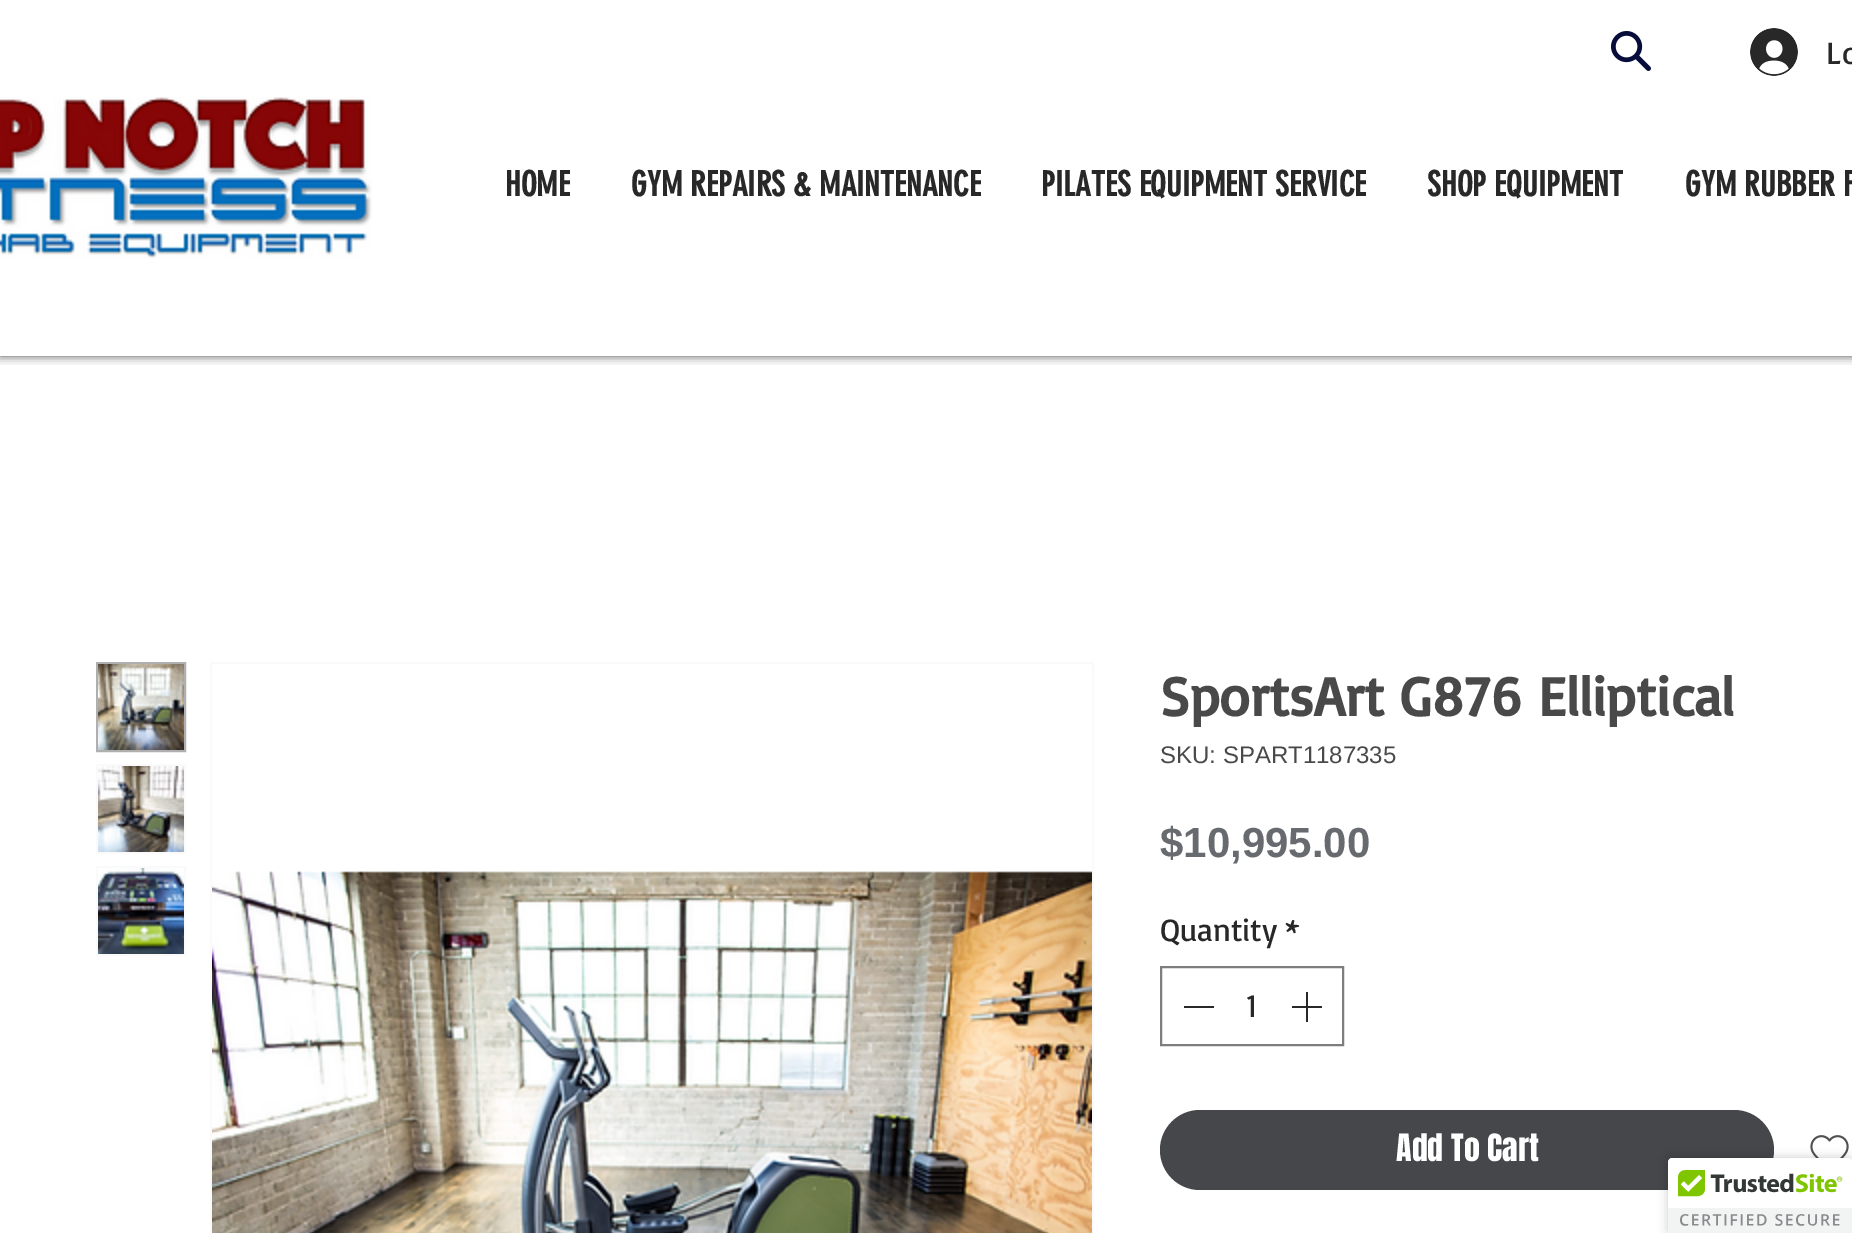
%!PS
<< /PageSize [1852 1233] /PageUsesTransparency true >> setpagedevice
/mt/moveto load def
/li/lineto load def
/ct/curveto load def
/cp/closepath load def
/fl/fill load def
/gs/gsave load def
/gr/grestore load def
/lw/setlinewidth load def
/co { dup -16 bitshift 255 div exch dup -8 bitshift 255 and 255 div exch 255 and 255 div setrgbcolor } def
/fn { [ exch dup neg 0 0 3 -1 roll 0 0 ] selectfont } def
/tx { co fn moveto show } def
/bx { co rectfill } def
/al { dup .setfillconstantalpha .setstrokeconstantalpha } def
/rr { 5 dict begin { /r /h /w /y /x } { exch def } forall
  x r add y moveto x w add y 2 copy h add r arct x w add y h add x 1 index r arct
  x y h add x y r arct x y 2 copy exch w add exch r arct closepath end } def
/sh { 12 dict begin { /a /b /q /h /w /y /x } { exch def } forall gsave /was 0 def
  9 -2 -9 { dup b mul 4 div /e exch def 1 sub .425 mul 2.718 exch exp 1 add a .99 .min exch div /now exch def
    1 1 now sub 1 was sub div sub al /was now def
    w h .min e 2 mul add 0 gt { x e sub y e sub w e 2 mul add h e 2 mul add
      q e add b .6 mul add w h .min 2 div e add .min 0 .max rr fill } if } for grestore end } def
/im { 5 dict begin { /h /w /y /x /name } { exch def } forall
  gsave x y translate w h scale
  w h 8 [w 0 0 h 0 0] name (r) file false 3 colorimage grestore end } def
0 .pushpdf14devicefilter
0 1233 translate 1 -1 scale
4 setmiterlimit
0 0 1852 1233 16#FFFFFF bx
gs
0 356 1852 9 rectclip
16#000000 co
0 0 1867 356 0 5 .7 sh
gr
(media/1.raw) 1611 31 40 40 im
(media/2.raw) 1750 28 48 48 im
(media/3.raw) 0 97 372 162 im
16#AFAFAF co
2 lw
97 663 88 88 rectstroke
(media/4.raw) 98 664 86 86 im
16#FAFAFA co
97 765 88 88 rectstroke
(media/5.raw) 98 766 86 86 im
97 867 88 88 rectstroke
(media/6.raw) 98 868 86 86 im
211 663 882 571 rectstroke
(media/7.raw) 212 871 880 362 im
16#7E7E7E co
1161 967 182 78 rectstroke
1184 1006 30 2 16#282828 bx
(media/8.raw) 1292 992 30 30 im
16#45474A co
1160 1110 614 80 40 rr fl
(media/9.raw) 1810 1135 39 23 im
16#000000 co
1668 1158 184 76 4 5 .2 sh
16#FFFFFF co
1672 1158 mt 1852 1158 li 1852 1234 li 1668 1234 li 1668 1162 li 1668 1160 1670 1158 1672 1158 ct cp fl
(media/10.raw) 1668 1158 184 75 im
(Lo) 1826 64 /Basic-Regular 32 16#282828 tx
(HOME) 505 196 /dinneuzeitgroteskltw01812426-Bold 34 16#282828 tx
(GYM REPAIRS & MAINTENANCE) 631 196 /dinneuzeitgroteskltw01812426-Bold 34 16#282828 tx
(PILATES EQUIPMENT SERVICE) 1041 196 /dinneuzeitgroteskltw01812426-Bold 34 16#282828 tx
(SHOP EQUIPMENT) 1427 196 /dinneuzeitgroteskltw01812426-Bold 34 16#282828 tx
(GYM RUBBER F) 1685 196 /dinneuzeitgroteskltw01812426-Bold 34 16#282828 tx
(SportsArt G876 Elliptical) 1160 716 /Basic-Bold 56 16#494949 tx
(SKU: SPART1187335) 1160 763 /LiberationSans-Regular 24 16#494949 tx
($10,995.00) 1160 857 /LiberationSans-Bold 42 16#676A6F tx
(Quantity) 1160 941 /Basic-Regular 32 16#282828 tx
(*) 1285 941 /Basic-Regular 32 16#282828 tx
(1) 1246 1017 /Basic-Regular 32 16#282828 tx
(Add To Cart) 1396 1161 /Anton-Regular 32 16#FFFFFF tx
.poppdf14devicefilter showpage
